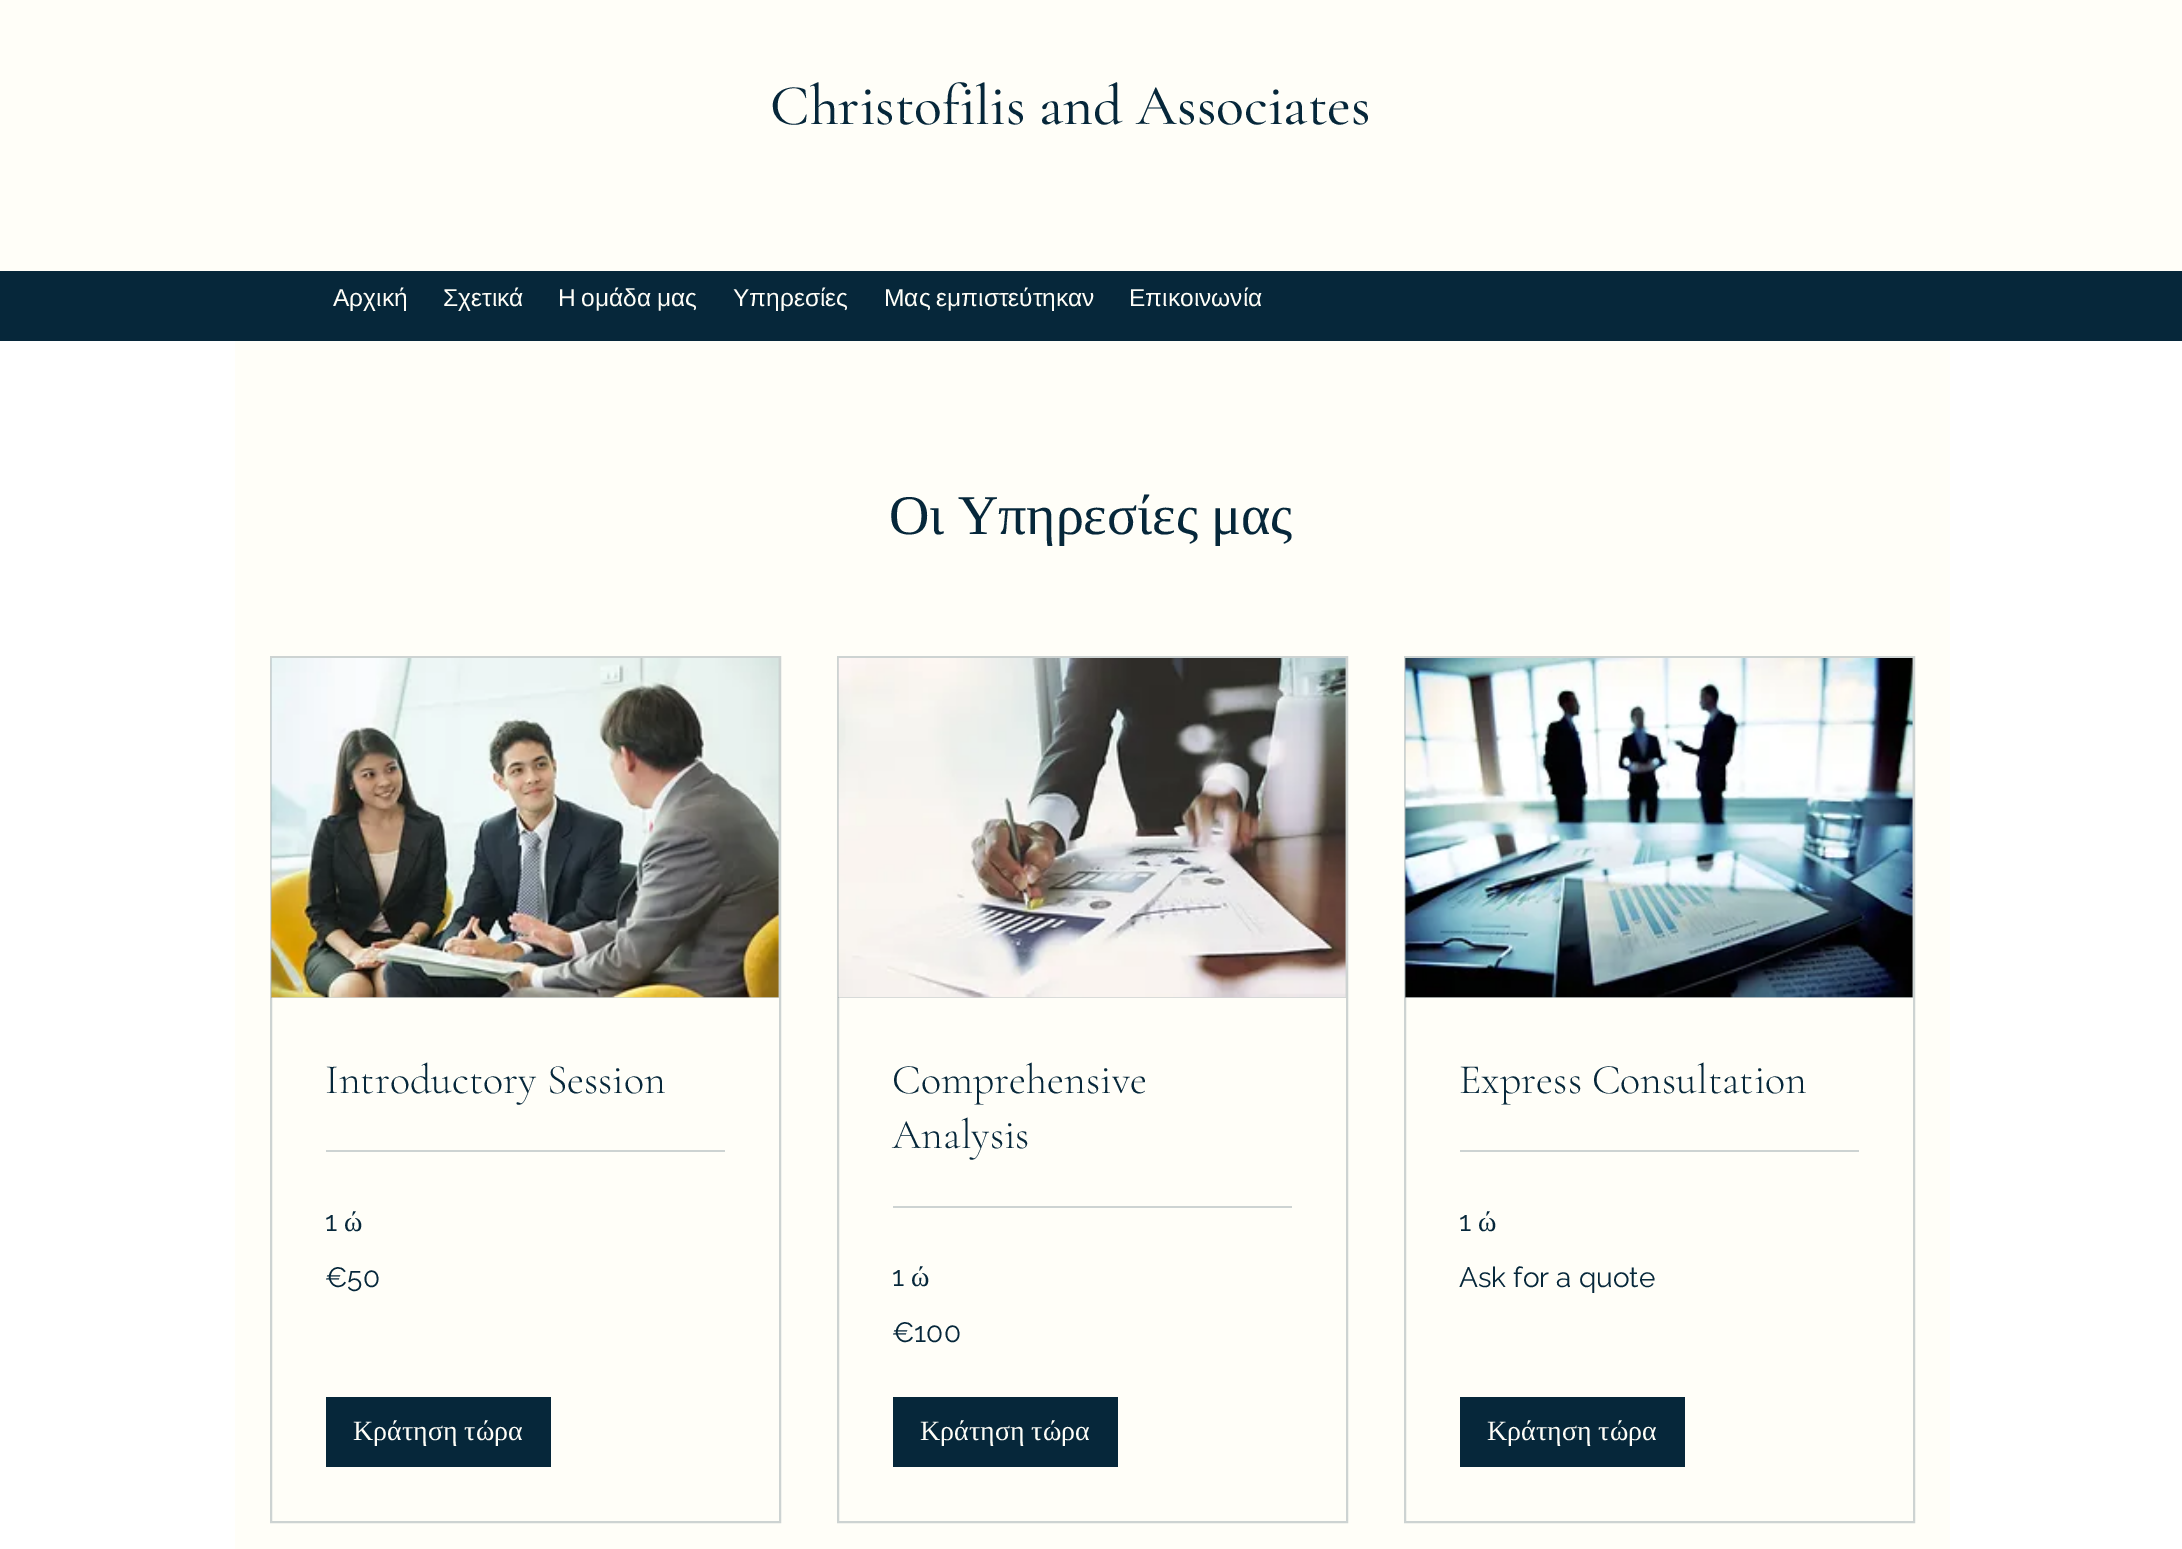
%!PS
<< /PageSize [2182 1549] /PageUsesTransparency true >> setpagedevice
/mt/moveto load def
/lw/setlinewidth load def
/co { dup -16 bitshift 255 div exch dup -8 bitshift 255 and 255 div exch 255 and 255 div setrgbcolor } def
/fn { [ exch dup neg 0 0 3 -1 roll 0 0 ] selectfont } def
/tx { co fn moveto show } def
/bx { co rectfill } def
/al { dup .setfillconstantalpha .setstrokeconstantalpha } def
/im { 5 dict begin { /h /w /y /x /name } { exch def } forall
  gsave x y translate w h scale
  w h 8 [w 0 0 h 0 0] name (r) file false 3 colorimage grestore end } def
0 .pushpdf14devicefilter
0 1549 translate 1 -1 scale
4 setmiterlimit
0 0 2182 1549 16#FFFFFF bx
0 0 2182 271 16#FFFEF8 bx
0 271 2182 70 16#06273A bx
235 341 1715 1208 16#FFFEF8 bx
16#CDD3D2 co
2 lw
271 657 509 865 rectstroke
0.2 al
271 658 508 340 16#06273A bx
1 al
(media/1.raw) 271 658 508 340 im
326 1150 399 2 16#CDD3D2 bx
326 1397 225 70 16#06273A bx
16#CDD3D2 co
838 657 509 865 rectstroke
0.2 al
838 658 508 340 16#06273A bx
1 al
(media/2.raw) 838 658 508 340 im
893 1206 399 2 16#CDD3D2 bx
893 1397 225 70 16#06273A bx
16#CDD3D2 co
1405 657 509 865 rectstroke
0.2 al
1405 658 508 340 16#06273A bx
1 al
(media/3.raw) 1405 658 508 340 im
1460 1150 399 2 16#CDD3D2 bx
1460 1397 225 70 16#06273A bx
(Christofilis and Associates) 770 124 /CormorantGaramond-Medium 57.75 16#06273A tx
(Αρχική) 333 306 /LiberationSans-Regular 24.5 16#FFFEF8 tx
(Σχετικά) 443 306 /LiberationSans-Regular 24.5 16#FFFEF8 tx
558 306 mt -1 0 32 (Η ομάδα μας) widthshow
(Υπηρεσίες) 733 306 /LiberationSans-Regular 24.5 16#FFFEF8 tx
884 306 mt -1 0 32 (Μας εμπιστεύτηκαν) widthshow
(Επικοινωνία) 1129 306 /LiberationSans-Regular 24.5 16#FFFEF8 tx
/LiberationSerif-Regular 56 fn
16#06273A co
889 534 mt -1 0 32 (Οι Υπηρεσίες μας) widthshow
(Introductory Session) 325 1093 /CormorantGaramond-Light 42 16#06273A tx
(1) 325 1231 /Raleway-Regular 28 16#06273A tx
(ώ) 344 1231 /LiberationSerif-Regular 28 16#06273A tx
(€50) 325 1287 /Raleway-Regular 28 16#06273A tx
(Κράτηση τώρα) 353 1440 /LiberationSerif-Regular 28 16#FFFEF8 tx
(Comprehensive) 892 1093 /CormorantGaramond-Light 42 16#06273A tx
(Analysis) 892 1148 /CormorantGaramond-Light 42 16#06273A tx
(1) 892 1286 /Raleway-Regular 28 16#06273A tx
(ώ) 911 1286 /LiberationSerif-Regular 28 16#06273A tx
(€100) 892 1342 /Raleway-Regular 28 16#06273A tx
(Κράτηση τώρα) 920 1440 /LiberationSerif-Regular 28 16#FFFEF8 tx
(Express Consultation) 1459 1093 /CormorantGaramond-Light 42 16#06273A tx
(1) 1459 1231 /Raleway-Regular 28 16#06273A tx
(ώ) 1478 1231 /LiberationSerif-Regular 28 16#06273A tx
(Ask for a quote) 1459 1287 /Raleway-Regular 28 16#06273A tx
(Κράτηση τώρα) 1487 1440 /LiberationSerif-Regular 28 16#FFFEF8 tx
.poppdf14devicefilter showpage
